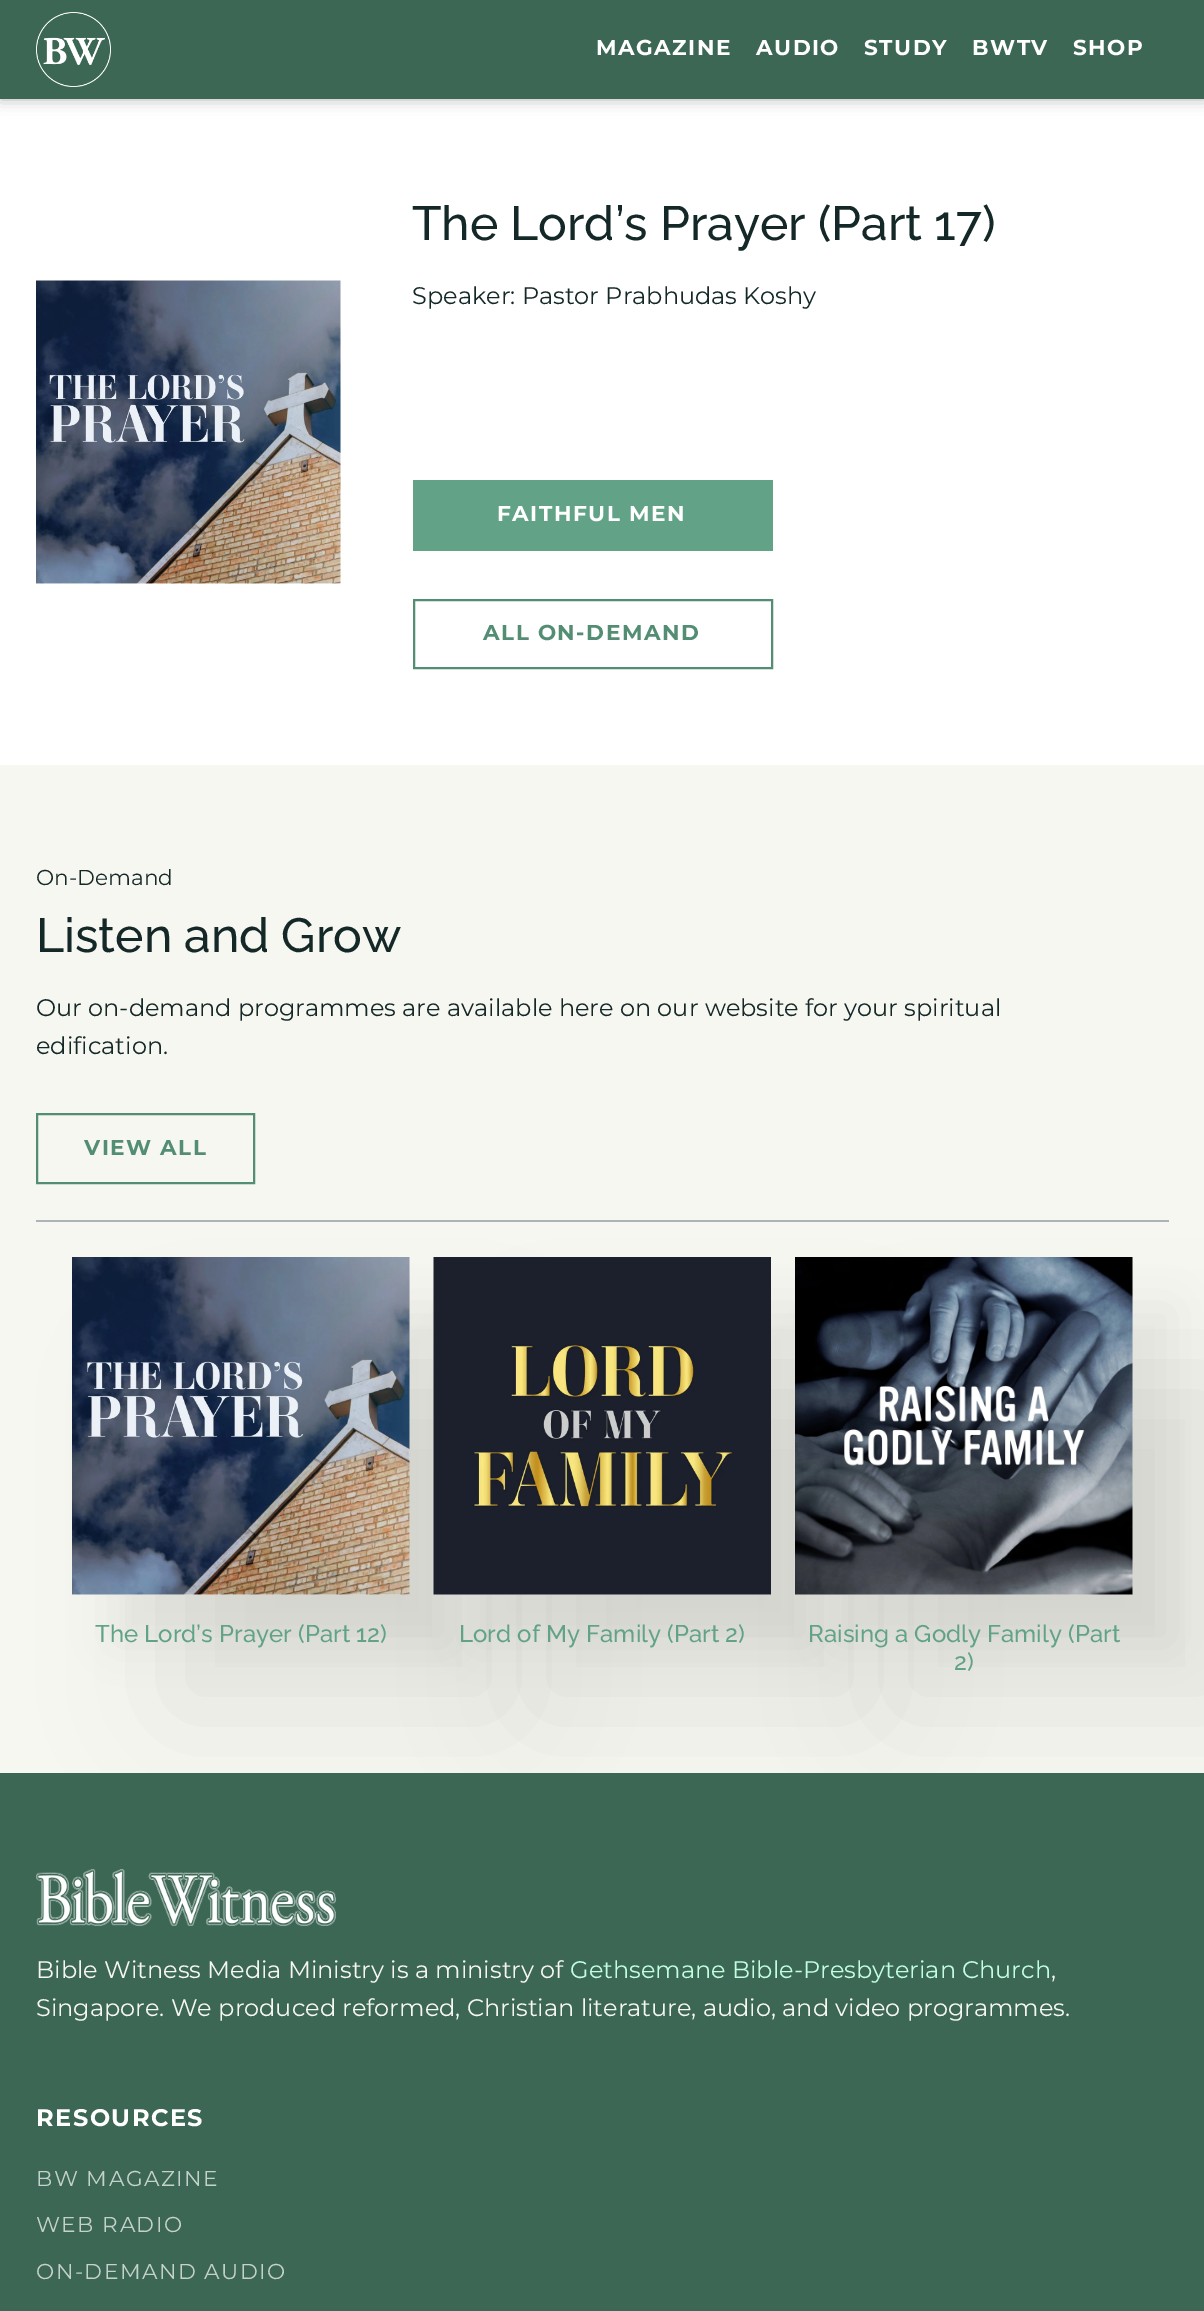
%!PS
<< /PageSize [1204 2311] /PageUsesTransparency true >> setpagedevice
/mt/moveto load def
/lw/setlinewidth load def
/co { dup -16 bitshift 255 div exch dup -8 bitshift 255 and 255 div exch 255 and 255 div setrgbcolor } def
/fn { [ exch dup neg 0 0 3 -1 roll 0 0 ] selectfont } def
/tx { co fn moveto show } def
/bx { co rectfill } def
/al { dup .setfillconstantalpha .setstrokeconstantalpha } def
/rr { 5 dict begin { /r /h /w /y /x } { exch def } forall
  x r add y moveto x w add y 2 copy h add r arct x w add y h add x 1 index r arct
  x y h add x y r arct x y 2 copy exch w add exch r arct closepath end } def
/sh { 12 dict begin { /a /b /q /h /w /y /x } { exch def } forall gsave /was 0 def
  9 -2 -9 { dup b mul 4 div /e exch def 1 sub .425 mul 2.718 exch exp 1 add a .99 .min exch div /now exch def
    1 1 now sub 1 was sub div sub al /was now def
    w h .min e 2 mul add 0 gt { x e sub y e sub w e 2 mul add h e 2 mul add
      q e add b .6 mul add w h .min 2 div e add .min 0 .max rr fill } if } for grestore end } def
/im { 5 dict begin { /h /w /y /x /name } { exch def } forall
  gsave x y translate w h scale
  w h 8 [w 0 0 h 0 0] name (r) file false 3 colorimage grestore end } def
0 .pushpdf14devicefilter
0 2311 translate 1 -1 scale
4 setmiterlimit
0 0 1204 2311 16#FFFFFF bx
16#000000 co
0 0 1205 99 0 7.5 .3 sh
0 0 1204 99 16#3C6755 bx
(media/1.raw) 36 12 75 75 im
(media/2.raw) 36 280 305 304 im
413 480 360 71 16#62A388 bx
16#538D73 co
2 lw
414 600 358 68 rectstroke
0 765 1204 1008 16#F7F7F2 bx
36 1220 1133 2 16#ADB4B9 bx
16#538D73 co
37 1114 217 69 rectstroke
0 1773 1204 538 16#3C6755 bx
16#000000 co
170 1374 337 338 0 60 .07 sh
113 1307 337 337 0 25 .05 sh
(media/3.raw) 72 1257 338 338 im
531 1374 338 338 0 60 .07 sh
474 1307 338 337 0 25 .05 sh
(media/4.raw) 433 1257 338 338 im
893 1374 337 338 0 60 .07 sh
836 1307 337 337 0 25 .05 sh
(media/5.raw) 795 1257 338 338 im
(media/6.raw) 36 1869 300 57 im
/Montserrat-Bold 21.6 fn
16#FFFFFF co
596 55 mt 1.5 0 (MAGAZINE) ashow
756 55 mt 1.5 0 (AUDIO) ashow
864 55 mt 1.5 0 (STUDY) ashow
972 55 mt 1.5 0 (BWTV) ashow
1073 55 mt 1.5 0 (SHOP) ashow
(The Lord’s Prayer \(Part 17\)) 412 240 /Raleway-Medium 48 16#152828 tx
(Speaker: Pastor Prabhudas Koshy) 412 304 /Montserrat-Regular 24 16#152828 tx
/Montserrat-Bold 21.6 fn
16#FFFFFF co
497 521 mt 1.5 0 (FAITHFUL MEN) ashow
16#538D73 co
483 640 mt 1.5 0 (ALL ON-DEMAND) ashow
(On-Demand) 36 885 /Montserrat-Regular 21.6 16#152828 tx
(Listen and Grow) 36 952 /Raleway-Medium 48 16#152828 tx
(Our on-demand programmes are available here on our website for your spiritual) 36 1016 /Montserrat-Regular 24 16#152828 tx
(edification.) 36 1054 /Montserrat-Regular 24 16#152828 tx
/Montserrat-Bold 21.6 fn
16#538D73 co
84 1155 mt 1.5 0 (VIEW ALL) ashow
(The Lord’s Prayer \(Part 12\)) 95 1642 /Raleway-Medium 24 16#62A388 tx
(Lord of My Family \(Part 2\)) 459 1642 /Raleway-Medium 24 16#62A388 tx
(Raising a Godly Family \(Part) 808 1642 /Raleway-Medium 24 16#62A388 tx
(2\)) 954 1670 /Raleway-Medium 24 16#62A388 tx
(Bible Witness Media Ministry is a ministry of) 36 1978 /Montserrat-Regular 24 16#F7F7F2 tx
(Gethsemane Bible-Presbyterian Church) 570 1978 /Montserrat-Regular 24 16#C2FFE1 tx
(,) 1051 1978 /Montserrat-Regular 24 16#F7F7F2 tx
(Singapore. We produced reformed, Christian literature, audio, and video programmes.) 36 2016 /Montserrat-Regular 24 16#F7F7F2 tx
/Montserrat-Bold 24 fn
16#FFFFFF co
36 2126 mt 1.5 0 (RESOURCES) ashow
/Montserrat-Regular 21.6 fn
16#C5D1CC co
36 2186 mt 1.5 0 (BW MAGAZINE) ashow
36 2232 mt 1.5 0 (WEB RADIO) ashow
36 2279 mt 1.5 0 (ON-DEMAND AUDIO) ashow
.poppdf14devicefilter showpage
